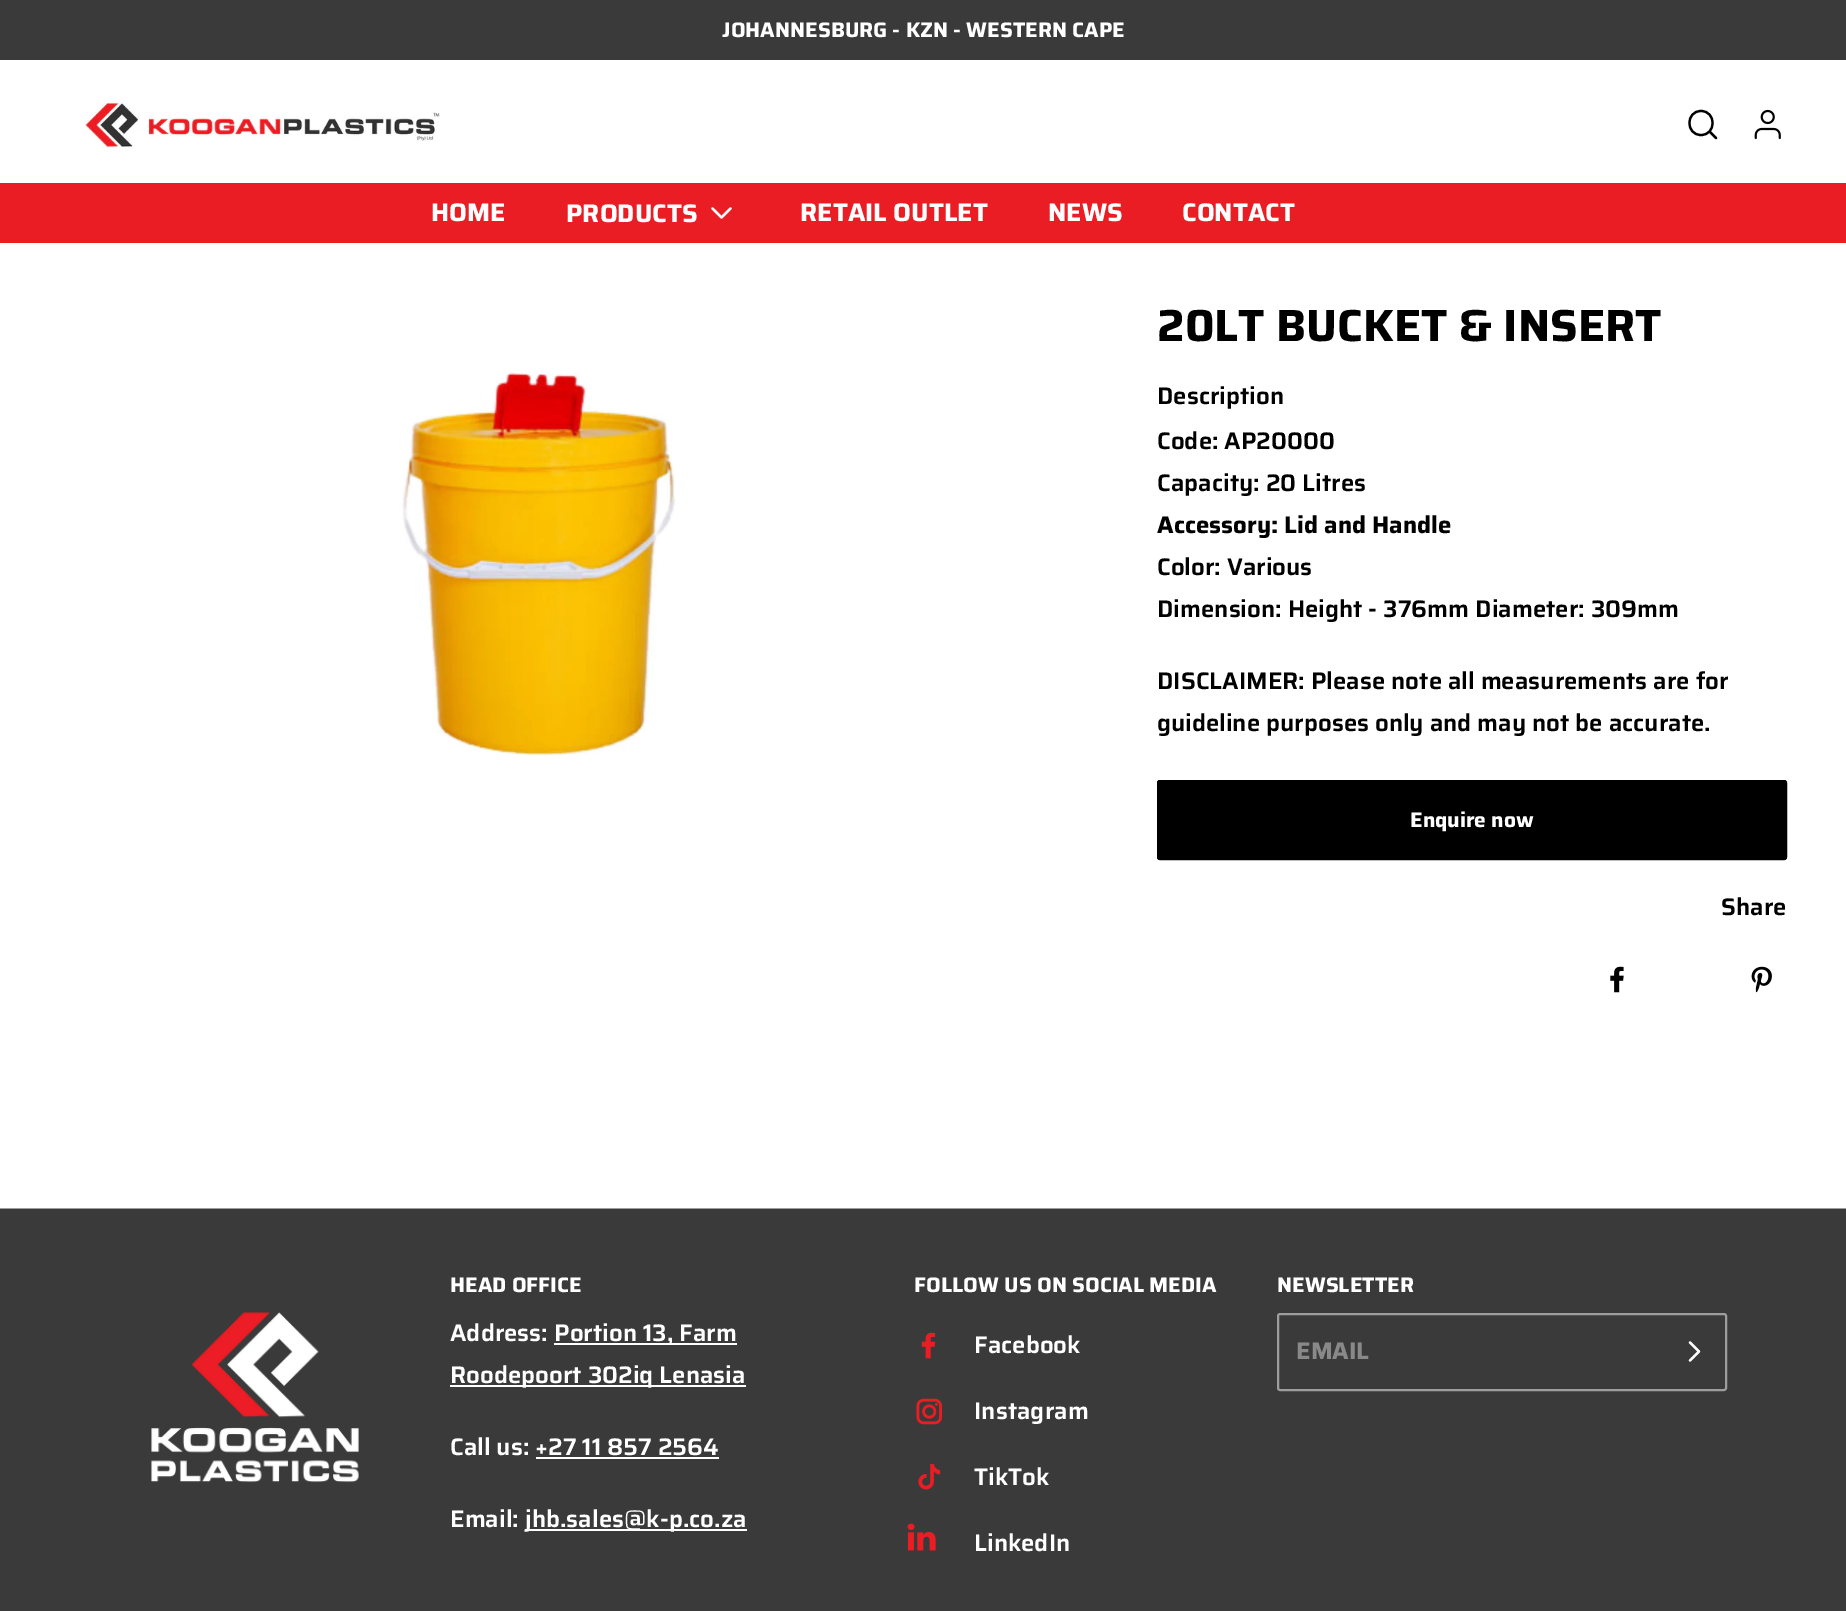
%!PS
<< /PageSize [1846 1611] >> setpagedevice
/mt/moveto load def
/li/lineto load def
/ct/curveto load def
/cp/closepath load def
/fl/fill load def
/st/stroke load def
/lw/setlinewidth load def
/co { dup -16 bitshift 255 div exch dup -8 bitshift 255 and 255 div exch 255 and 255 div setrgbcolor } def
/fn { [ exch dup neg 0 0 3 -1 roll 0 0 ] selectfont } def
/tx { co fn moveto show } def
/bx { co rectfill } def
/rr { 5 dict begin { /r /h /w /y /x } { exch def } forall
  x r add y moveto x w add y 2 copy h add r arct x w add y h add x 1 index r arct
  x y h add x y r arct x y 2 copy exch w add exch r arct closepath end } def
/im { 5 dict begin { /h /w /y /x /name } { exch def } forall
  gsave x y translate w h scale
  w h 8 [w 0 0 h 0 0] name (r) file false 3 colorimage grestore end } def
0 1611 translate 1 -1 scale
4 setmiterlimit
0 0 1846 1611 16#FFFFFF bx
0 0 1846 60 16#3A3A3A bx
(media/1.raw) 84 102 356 47 im
16#000000 co
2.2 lw
1 setlinecap
1 setlinejoin
1701 135 mt 1716.5 135 1716.5 111 1701 111 ct 1685.5 111 1685.5 135 1701 135 ct cp 1716 138 mt 1709.5 131.5 li st
(media/2.raw) 1754 109 27 31 im
0 183 1846 60 16#EB1D24 bx
16#FFFFFF co
712.5 208.5 mt 721.5 217.5 li 730.5 208.5 li st
(media/3.raw) 402 371 273 385 im
16#000000 co
1157 780 630 80 3 rr fl
2 lw
0 setlinecap
0 setlinejoin
1158 781 628 78 2 rr st
(media/4.raw) 1610 966 14 27 im
(media/5.raw) 1751 966 21 27 im
0 1208 1846 1 16#9D9D9D bx
0 1209 1846 402 16#3A3A3A bx
(media/6.raw) 151 1312 208 171 im
554 1343 183 2 16#FFFFFF bx
450 1385 296 2 16#FFFFFF bx
536 1457 183 2 16#FFFFFF bx
525 1529 222 2 16#FFFFFF bx
(media/7.raw) 921 1332 15 27 im
(media/8.raw) 916 1398 26 27 im
(media/9.raw) 918 1464 23 26 im
(media/10.raw) 907 1523 29 28 im
16#9D9D9D co
1278 1314 448 76 2 rr st
16#FFFFFF co
2.2 lw
1 setlinecap
1 setlinejoin
1690 1342.5 mt 1699 1351.5 li 1690 1360.5 li st
(JOHANNESBURG - KZN - WESTERN CAPE) 722 37 /Saira-Bold 21 16#FFFFFF tx
(HOME) 431 221 /Saira-Bold 25.5 16#FFFFFF tx
(PRODUCTS) 566 222 /Saira-Bold 25.5 16#FFFFFF tx
(RETAIL OUTLET) 800 221 /Saira-Bold 25.5 16#FFFFFF tx
(NEWS) 1048 221 /Saira-Bold 25.5 16#FFFFFF tx
(CONTACT) 1182 221 /Saira-Bold 25.5 16#FFFFFF tx
(20LT BUCKET & INSERT) 1157 341 /Saira-Bold 45 16#000000 tx
(Description) 1157 404 /Saira-SemiBold 24 16#000000 tx
(Code: AP20000) 1157 449 /Saira-SemiBold 24 16#000000 tx
(Capacity: 20 Litres) 1157 491 /Saira-SemiBold 24 16#000000 tx
(Accessory: Lid and Handle) 1157 533 /Saira-Bold 24 16#000000 tx
(Color: Various) 1157 575 /Saira-SemiBold 24 16#000000 tx
(Dimension: Height - 376mm Diameter: 309mm) 1157 617 /Saira-SemiBold 24 16#000000 tx
(DISCLAIMER: Please note all measurements are for) 1157 689 /Saira-SemiBold 24 16#000000 tx
(guideline purposes only and may not be accurate.) 1157 731 /Saira-SemiBold 24 16#000000 tx
(Enquire now) 1410 827 /Saira-Bold 21 16#FFFFFF tx
(Share) 1721 915 /Saira-SemiBold 24 16#000000 tx
(HEAD OFFICE) 450 1292 /Saira-Bold 21 16#FFFFFF tx
(Address:) 450 1341 /Saira-SemiBold 24 16#FFFFFF tx
(Portion 13, Farm) 554 1341 /Saira-SemiBold 24 16#FFFFFF tx
(Roodepoort 302iq Lenasia) 450 1383 /Saira-SemiBold 24 16#FFFFFF tx
(Call us: +27 11 857 2564) 450 1455 /Saira-SemiBold 24 16#FFFFFF tx
(Email:) 450 1527 /Saira-SemiBold 24 16#FFFFFF tx
(jhb.sales@k-p.co.za) 525 1527 /Saira-SemiBold 24 16#FFFFFF tx
(FOLLOW US ON SOCIAL MEDIA) 914 1292 /Saira-Bold 21 16#FFFFFF tx
(Facebook) 974 1353 /Saira-SemiBold 24 16#FFFFFF tx
(Instagram) 974 1419 /Saira-SemiBold 24 16#FFFFFF tx
(TikTok) 974 1485 /Saira-SemiBold 24 16#FFFFFF tx
(LinkedIn) 974 1551 /Saira-SemiBold 24 16#FFFFFF tx
(NEWSLETTER) 1277 1292 /Saira-Bold 21 16#FFFFFF tx
(EMAIL) 1296 1359 /Saira-Bold 24 16#898989 tx
showpage
